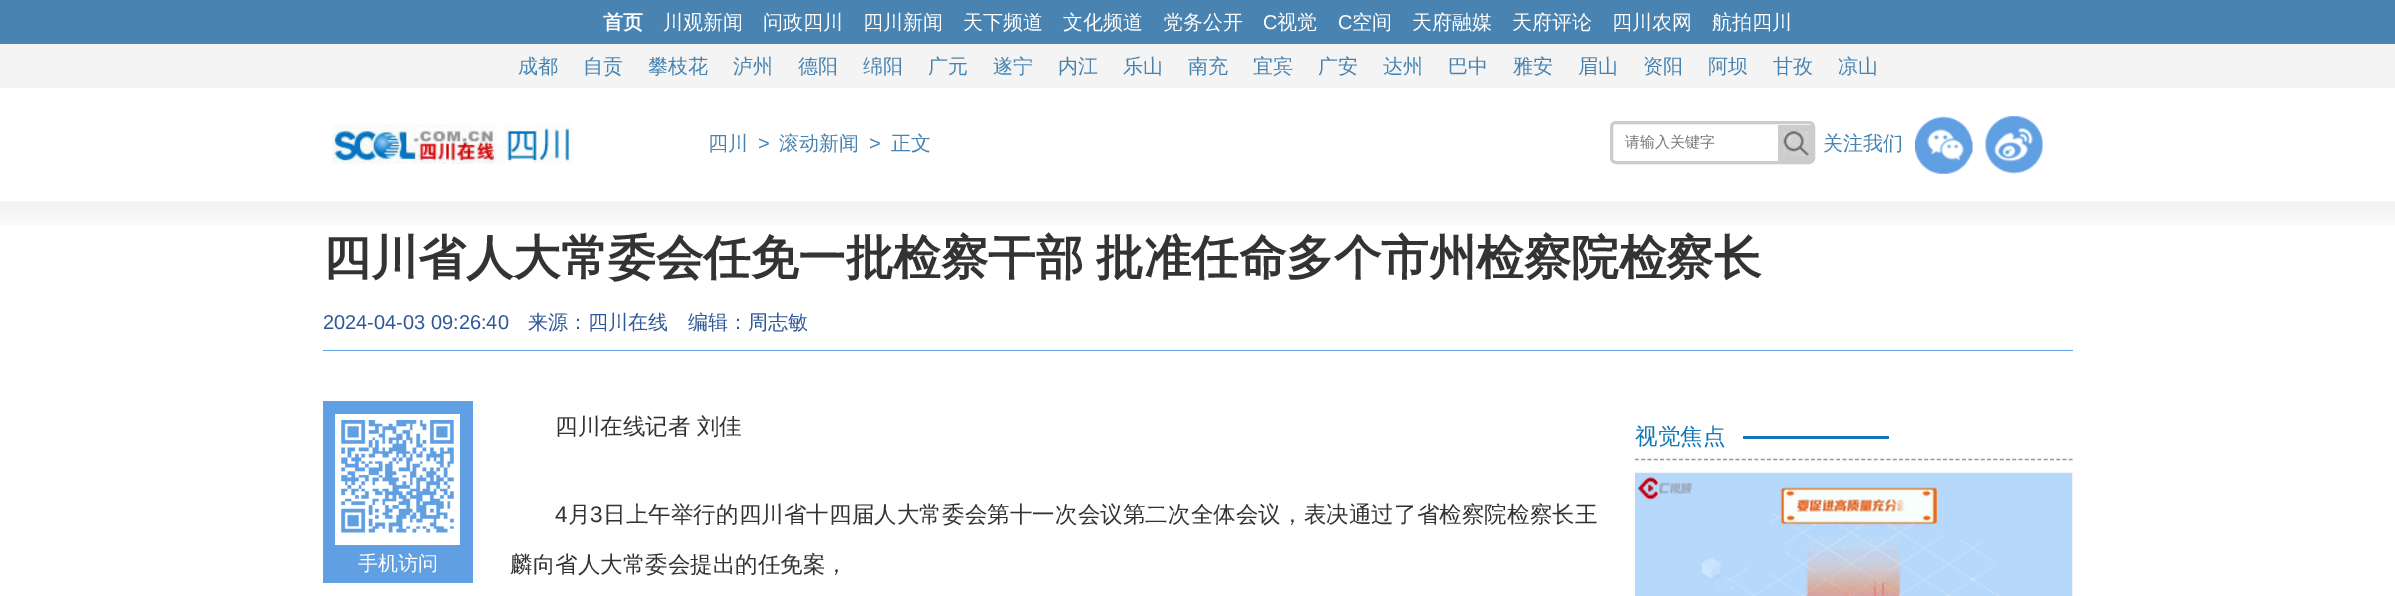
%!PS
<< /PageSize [2395 596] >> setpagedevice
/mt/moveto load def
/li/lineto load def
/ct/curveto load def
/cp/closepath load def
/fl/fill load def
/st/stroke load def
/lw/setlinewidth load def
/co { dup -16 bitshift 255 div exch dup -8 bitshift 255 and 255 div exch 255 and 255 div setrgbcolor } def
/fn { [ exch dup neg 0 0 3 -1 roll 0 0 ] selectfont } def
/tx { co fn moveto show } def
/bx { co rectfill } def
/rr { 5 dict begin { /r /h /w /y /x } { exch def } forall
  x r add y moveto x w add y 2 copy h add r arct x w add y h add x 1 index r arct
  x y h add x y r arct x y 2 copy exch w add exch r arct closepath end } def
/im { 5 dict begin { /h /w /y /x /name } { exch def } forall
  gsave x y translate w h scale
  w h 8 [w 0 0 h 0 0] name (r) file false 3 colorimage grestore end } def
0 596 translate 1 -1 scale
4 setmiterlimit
0 0 2395 596 16#FFFFFF bx
0 0 2395 44 16#4983B1 bx
0 44 2395 44 16#F4F4F4 bx
(media/1.raw) 332 123 241 41 im
16#CCCCCC co
3 lw
1611.5 122.5 202 40 4.5 rr st
1778 125 mt 1809 125 li 1812.5 125 1815 127.5 1815 131 ct 1815 157 li 1815 160.5 1812.5 163 1809 163 ct 1778 163 li cp fl
(media/2.raw) 1783 131 26 25 im
(media/3.raw) 1915 116 58 58 im
(media/4.raw) 1985 116 58 58 im
(media/5.raw) 0 201 2395 24 im
323 350 1750 1 16#619FE3 bx
1743 436 146 3 16#1277B8 bx
16#999999 co
1.2 lw
[3.75 2.54] 0 setdash
1635 459.5 mt 2072.5 459.5 li st
(media/6.raw) 1635 472 438 124 im
323 401 150 182 16#619FE3 bx
335 414 125 131 16#FFFFFF bx
(media/7.raw) 341 420 113 113 im
(首页) 603 29 /WenQuanYiZenHei-Bold 20 16#FFFFFF tx
(川观新闻) 663 29 /WenQuanYiZenHei-Medium 20 16#FFFFFF tx
(问政四川) 763 29 /WenQuanYiZenHei-Medium 20 16#FFFFFF tx
(四川新闻) 863 29 /WenQuanYiZenHei-Medium 20 16#FFFFFF tx
(天下频道) 963 29 /WenQuanYiZenHei-Medium 20 16#FFFFFF tx
(文化频道) 1063 29 /WenQuanYiZenHei-Medium 20 16#FFFFFF tx
(党务公开) 1163 29 /WenQuanYiZenHei-Medium 20 16#FFFFFF tx
(C) 1263 29 /LiberationSans-Regular 20 16#FFFFFF tx
(视觉) 1277 29 /WenQuanYiZenHei-Medium 20 16#FFFFFF tx
(C) 1338 29 /LiberationSans-Regular 20 16#FFFFFF tx
(空间) 1352 29 /WenQuanYiZenHei-Medium 20 16#FFFFFF tx
(天府融媒) 1412 29 /WenQuanYiZenHei-Medium 20 16#FFFFFF tx
(天府评论) 1512 29 /WenQuanYiZenHei-Medium 20 16#FFFFFF tx
(四川农网) 1612 29 /WenQuanYiZenHei-Medium 20 16#FFFFFF tx
(航拍四川) 1712 29 /WenQuanYiZenHei-Medium 20 16#FFFFFF tx
(成都) 518 73 /WenQuanYiZenHei-Medium 20 16#4683B1 tx
(自贡) 583 73 /WenQuanYiZenHei-Medium 20 16#4683B1 tx
(攀枝花) 648 73 /WenQuanYiZenHei-Medium 20 16#4683B1 tx
(泸州) 733 73 /WenQuanYiZenHei-Medium 20 16#4683B1 tx
(德阳) 798 73 /WenQuanYiZenHei-Medium 20 16#4683B1 tx
(绵阳) 863 73 /WenQuanYiZenHei-Medium 20 16#4683B1 tx
(广元) 928 73 /WenQuanYiZenHei-Medium 20 16#4683B1 tx
(遂宁) 993 73 /WenQuanYiZenHei-Medium 20 16#4683B1 tx
(内江) 1058 73 /WenQuanYiZenHei-Medium 20 16#4683B1 tx
(乐山) 1123 73 /WenQuanYiZenHei-Medium 20 16#4683B1 tx
(南充) 1188 73 /WenQuanYiZenHei-Medium 20 16#4683B1 tx
(宜宾) 1253 73 /WenQuanYiZenHei-Medium 20 16#4683B1 tx
(广安) 1318 73 /WenQuanYiZenHei-Medium 20 16#4683B1 tx
(达州) 1383 73 /WenQuanYiZenHei-Medium 20 16#4683B1 tx
(巴中) 1448 73 /WenQuanYiZenHei-Medium 20 16#4683B1 tx
(雅安) 1513 73 /WenQuanYiZenHei-Medium 20 16#4683B1 tx
(眉山) 1578 73 /WenQuanYiZenHei-Medium 20 16#4683B1 tx
(资阳) 1643 73 /WenQuanYiZenHei-Medium 20 16#4683B1 tx
(阿坝) 1708 73 /WenQuanYiZenHei-Medium 20 16#4683B1 tx
(甘孜) 1773 73 /WenQuanYiZenHei-Medium 20 16#4683B1 tx
(凉山) 1838 73 /WenQuanYiZenHei-Medium 20 16#4683B1 tx
(四川) 708 150 /WenQuanYiZenHei-Medium 20 16#4683B1 tx
(>) 758 150 /LiberationSans-Regular 20 16#4683B1 tx
(滚动新闻) 779 150 /WenQuanYiZenHei-Medium 20 16#4683B1 tx
(>) 869 150 /LiberationSans-Regular 20 16#4683B1 tx
(正文) 891 150 /WenQuanYiZenHei-Medium 20 16#4683B1 tx
(请输入关键字) 1625 147 /WenQuanYiZenHei-Medium 15 16#757575 tx
(关注我们) 1823 150 /WenQuanYiZenHei-Medium 20 16#4683B1 tx
/WenQuanYiZenHei-Bold 47.5 fn
16#333333 co
323 274 mt -1 0 32 (四川省人大常委会任免一批检察干部 批准任命多个市州检察院检察长) widthshow
(2024-04-03 09:26:40) 323 329 /LiberationSans-Regular 20 16#305798 tx
(来源：四川在线) 528 329 /WenQuanYiZenHei-Medium 20 16#305798 tx
(编辑：周志敏) 688 329 /WenQuanYiZenHei-Medium 20 16#305798 tx
(四川在线记者 刘佳) 555 434 /WenQuanYiZenHei-Medium 22.5 16#333333 tx
/LiberationSans-Regular 22.5 fn
555 522 mt .1 0 (4) ashow
/WenQuanYiZenHei-Medium 22.5 fn
568 522 mt .1 0 (月) ashow
/LiberationSans-Regular 22.5 fn
590 522 mt .1 0 (3) ashow
/WenQuanYiZenHei-Medium 22.5 fn
603 522 mt .1 0 (日上午举行的四川省十四届人大常委会第十一次会议第二次全体会议，表决通过了省检察院检察长王) ashow
(麟向省人大常委会提出的任免案，) 510 572 /WenQuanYiZenHei-Medium 22.5 16#333333 tx
(视觉焦点) 1635 444 /WenQuanYiZenHei-Medium 22.5 16#1277B8 tx
(手机访问) 358 570 /WenQuanYiZenHei-Medium 20 16#FFFFFF tx
showpage
